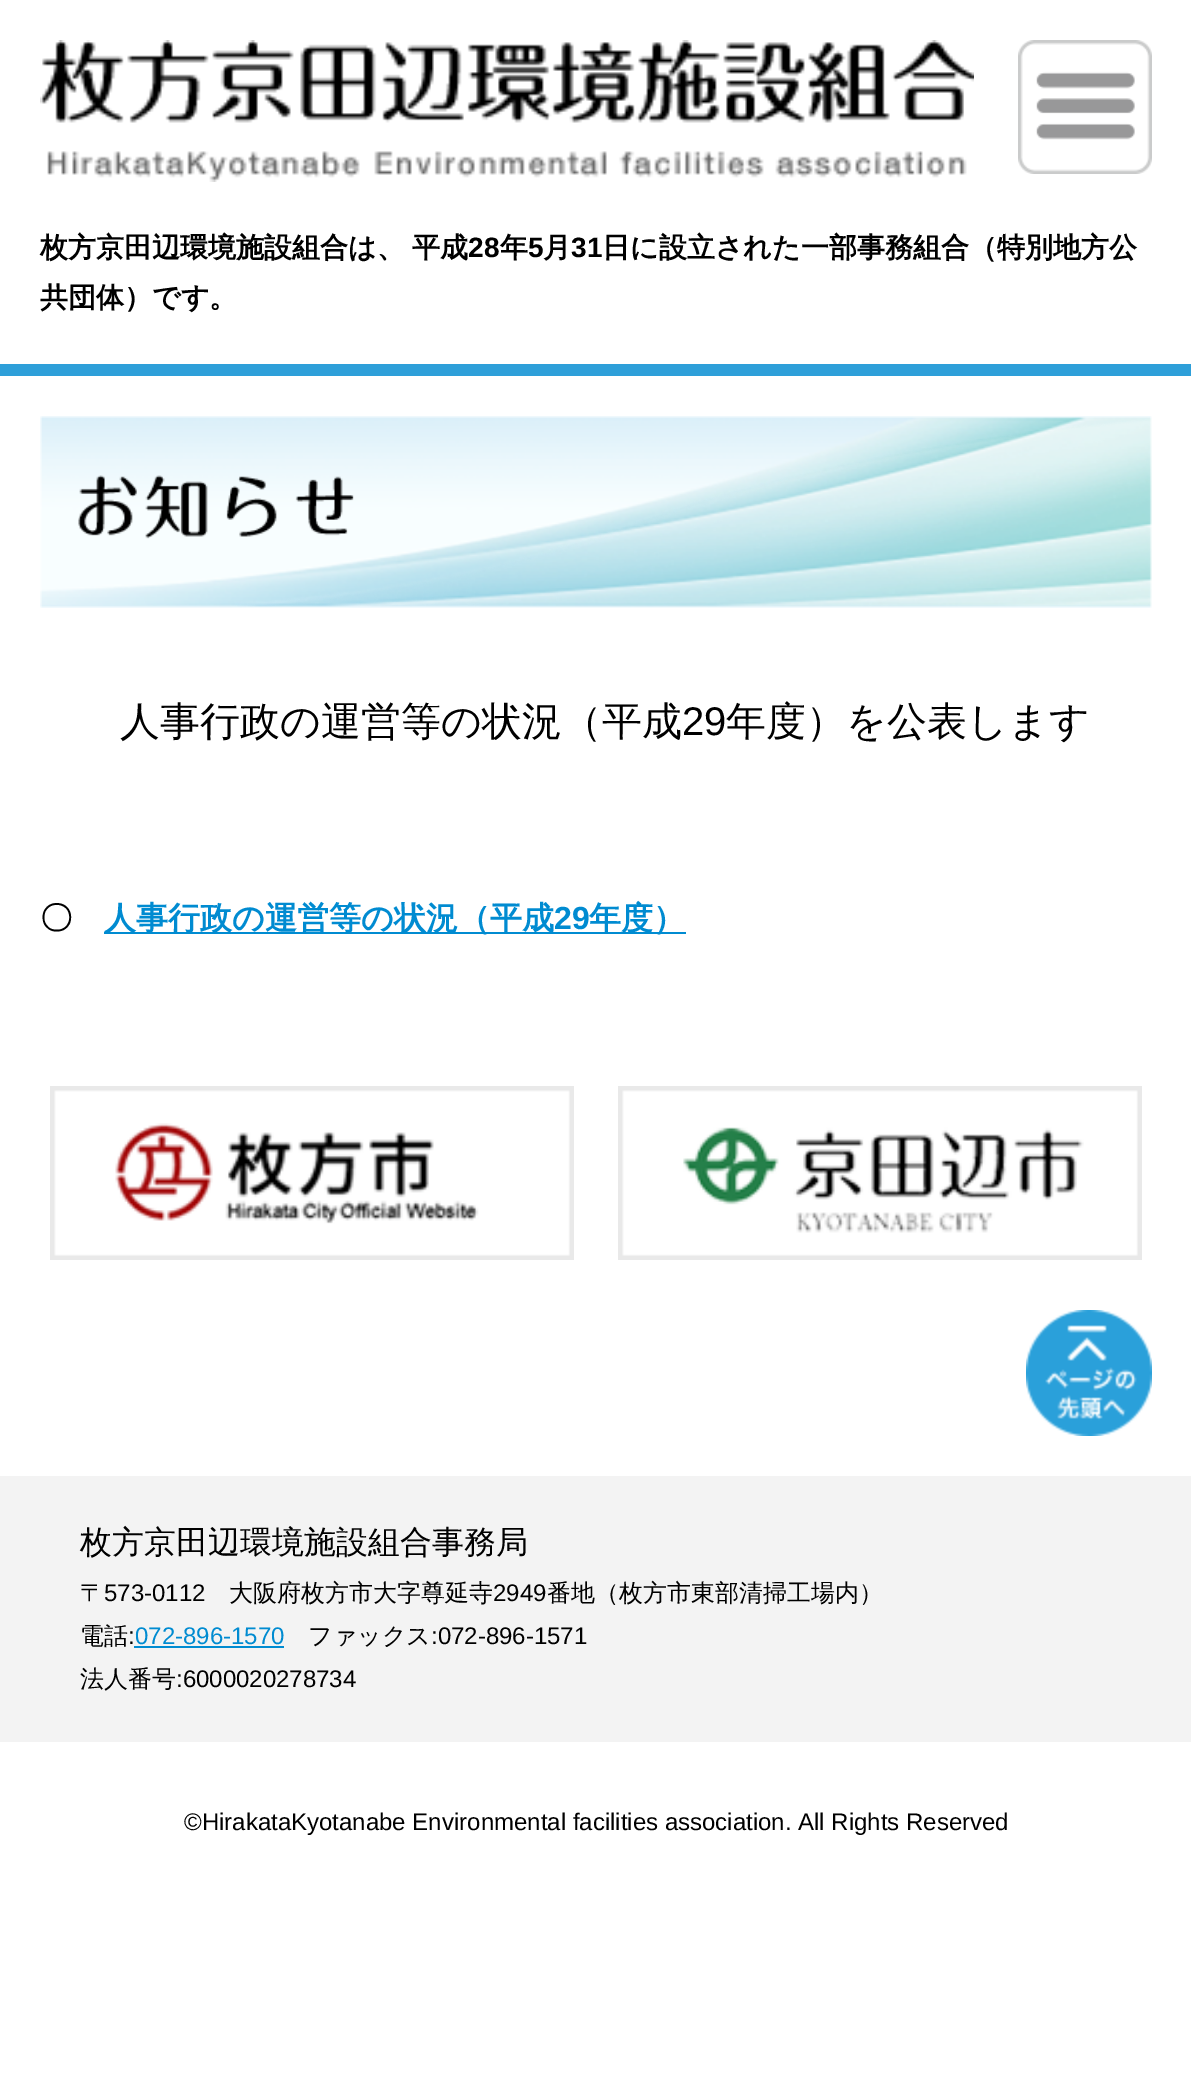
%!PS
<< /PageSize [1191 2086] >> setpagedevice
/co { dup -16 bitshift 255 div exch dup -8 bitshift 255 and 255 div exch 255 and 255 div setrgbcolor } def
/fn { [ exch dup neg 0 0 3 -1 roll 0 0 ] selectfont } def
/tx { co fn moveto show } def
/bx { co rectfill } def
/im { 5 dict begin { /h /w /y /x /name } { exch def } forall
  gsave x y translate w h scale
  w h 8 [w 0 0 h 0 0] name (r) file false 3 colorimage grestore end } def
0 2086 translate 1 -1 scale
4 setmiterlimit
0 0 1191 2086 16#FFFFFF bx
(media/1.raw) 40 40 934 142 im
(media/2.raw) 1018 40 134 134 im
0 364 1191 12 16#2E9FD9 bx
(media/3.raw) 40 416 1112 192 im
104 932 582 2 16#008BD1 bx
(media/4.raw) 50 1086 524 174 im
(media/5.raw) 618 1086 524 174 im
(media/6.raw) 1026 1310 126 126 im
0 1476 1191 266 16#F3F3F3 bx
134 1646 150 2 16#008BD1 bx
(枚方京田辺環境施設組合は、) 40 257 /WenQuanYiZenHei-Bold 28 16#000000 tx
(平成) 412 257 /WenQuanYiZenHei-Bold 28 16#000000 tx
(28) 468 257 /LiberationSans-Bold 28 16#000000 tx
(年) 500 257 /WenQuanYiZenHei-Bold 28 16#000000 tx
(5) 528 257 /LiberationSans-Bold 28 16#000000 tx
(月) 543 257 /WenQuanYiZenHei-Bold 28 16#000000 tx
(31) 571 257 /LiberationSans-Bold 28 16#000000 tx
(日に設立された一部事務組合（特別地方公) 602 257 /WenQuanYiZenHei-Bold 28 16#000000 tx
(共団体）です。) 40 307 /WenQuanYiZenHei-Bold 28 16#000000 tx
(人事行政の運営等の状況（平成) 120 735 /WenQuanYiZenHei-Medium 40 16#000000 tx
(29) 682 735 /LiberationSans-Regular 40 16#000000 tx
(年度）を公表します) 726 735 /WenQuanYiZenHei-Medium 40 16#000000 tx
(〇) 40 929 /WenQuanYiZenHei-Bold 32 16#000000 tx
(人事行政の運営等の状況（平成) 104 929 /WenQuanYiZenHei-Bold 32 16#008BD1 tx
(29) 554 929 /LiberationSans-Bold 32 16#008BD1 tx
(年度）) 589 929 /WenQuanYiZenHei-Bold 32 16#008BD1 tx
(枚方京田辺環境施設組合事務局) 80 1553 /WenQuanYiZenHei-Medium 32 16#000000 tx
(〒) 80 1601 /WenQuanYiZenHei-Medium 24 16#000000 tx
(573-0112) 104 1601 /LiberationSans-Regular 24 16#000000 tx
(大阪府枚方市大字尊延寺) 229 1601 /WenQuanYiZenHei-Medium 24 16#000000 tx
(2949) 493 1601 /LiberationSans-Regular 24 16#000000 tx
(番地（枚方市東部清掃工場内）) 547 1601 /WenQuanYiZenHei-Medium 24 16#000000 tx
(電話) 80 1644 /WenQuanYiZenHei-Medium 24 16#000000 tx
(:) 128 1644 /LiberationSans-Regular 24 16#000000 tx
(072-896-1570) 135 1644 /LiberationSans-Regular 24 16#008BD1 tx
(ファックス) 308 1644 /WenQuanYiZenHei-Medium 24 16#000000 tx
(:072-896-1571) 431 1644 /LiberationSans-Regular 24 16#000000 tx
(法人番号) 80 1687 /WenQuanYiZenHei-Medium 24 16#000000 tx
(:6000020278734) 176 1687 /LiberationSans-Regular 24 16#000000 tx
(©HirakataKyotanabe Environmental facilities association. All Rights Reserved) 184 1830 /LiberationSans-Regular 24 16#000000 tx
showpage
